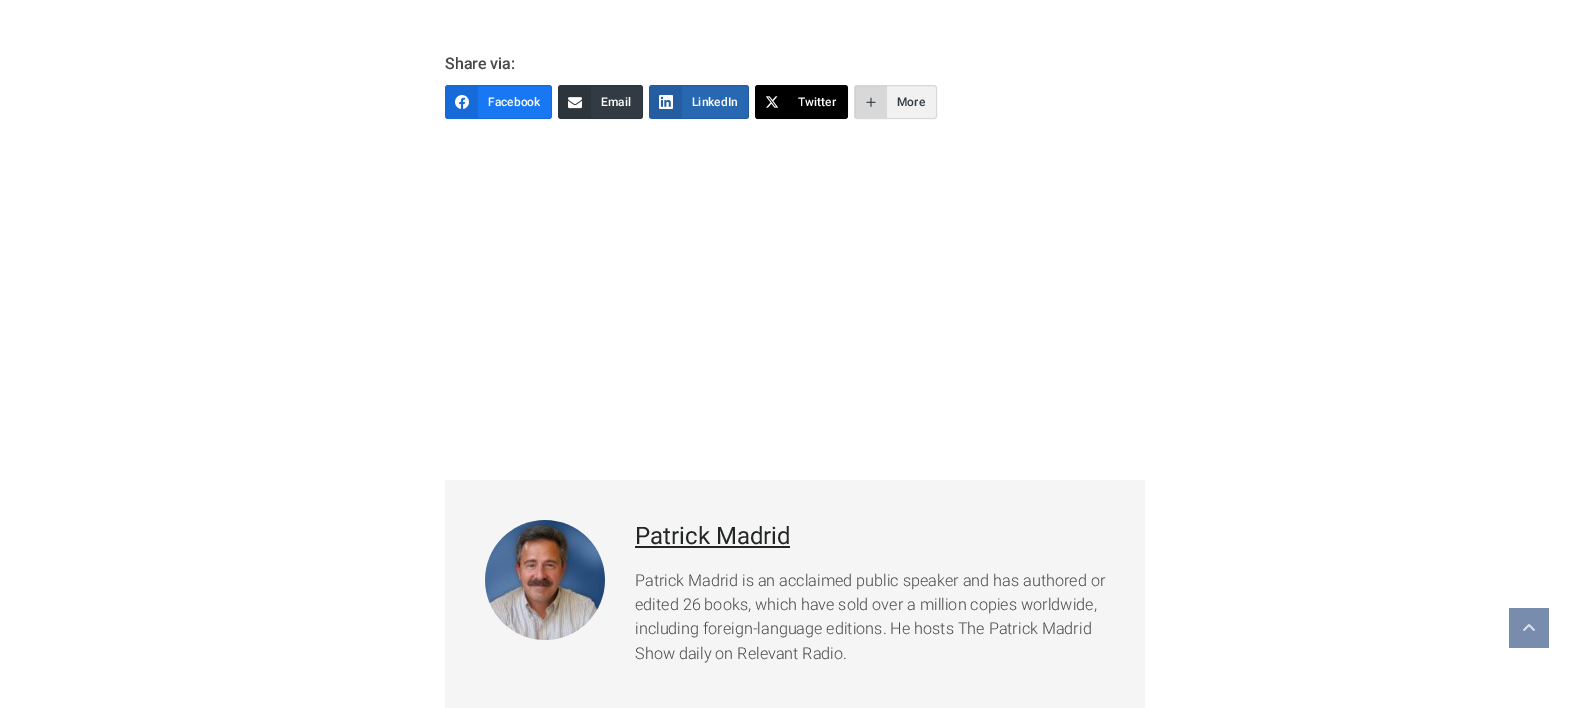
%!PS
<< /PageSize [1589 708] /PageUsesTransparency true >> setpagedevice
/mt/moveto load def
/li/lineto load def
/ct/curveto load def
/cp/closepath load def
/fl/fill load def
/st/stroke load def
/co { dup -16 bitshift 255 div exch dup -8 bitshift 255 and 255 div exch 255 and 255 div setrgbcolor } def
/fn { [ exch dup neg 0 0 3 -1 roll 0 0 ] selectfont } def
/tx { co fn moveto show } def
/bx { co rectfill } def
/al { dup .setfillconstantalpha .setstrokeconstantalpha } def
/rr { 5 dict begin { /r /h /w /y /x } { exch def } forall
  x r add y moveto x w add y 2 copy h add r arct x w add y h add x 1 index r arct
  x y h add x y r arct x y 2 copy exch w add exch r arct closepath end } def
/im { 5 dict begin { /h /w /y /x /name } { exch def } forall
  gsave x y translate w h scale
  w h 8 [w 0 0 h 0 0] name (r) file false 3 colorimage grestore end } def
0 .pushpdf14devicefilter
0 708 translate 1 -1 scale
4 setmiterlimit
0 0 1589 708 16#FFFFFF bx
16#1877F2 co
445 85 107 34 3 rr fl
0.1 al
16#000000 co
445.5 85.5 106 33 2.5 rr st
448 86 mt 478 86 li 478 118 li 448 118 li 447 118 446 117 446 116 ct 446 88 li 446 87 447 86 448 86 ct cp fl
1 al
(media/1.raw) 455 95 14 14 im
16#323B43 co
558 85 85 34 3 rr fl
0.1 al
16#000000 co
558.5 85.5 84 33 2.5 rr st
1 al
16#2D353C co
561 86 mt 591 86 li 591 118 li 561 118 li 560 118 559 117 559 116 ct 559 88 li 559 87 560 86 561 86 ct cp fl
(media/2.raw) 568 97 14 12 im
16#2867B2 co
649 85 100 34 3 rr fl
0.1 al
16#000000 co
649.5 85.5 99 33 2.5 rr st
1 al
16#245DA0 co
652 86 mt 682 86 li 682 118 li 652 118 li 651 118 650 117 650 116 ct 650 88 li 650 87 651 86 652 86 ct cp fl
(media/3.raw) 659 95 14 14 im
16#000000 co
755 85 93 34 3 rr fl
0.1 al
755.5 85.5 92 33 2.5 rr st
1 al
(media/4.raw) 765 96 14 12 im
16#F1F1F1 co
854 85 83 34 3 rr fl
0.1 al
16#000000 co
854.5 85.5 82 33 2.5 rr st
857 86 mt 887 86 li 887 118 li 857 118 li 856 118 855 117 855 116 ct 855 88 li 855 87 856 86 857 86 ct cp fl
1 al
(media/5.raw) 866 97 10 10 im
445 480 700 228 16#F5F5F5 bx
(media/6.raw) 485 520 120 120 im
635 546 155 2 16#232527 bx
1509 608 40 40 16#788DAE bx
(media/7.raw) 1523 624 12 7 im
(Share via:) 445 69 /Roboto-Medium 16 16#484848 tx
(Facebook) 488 106 /Roboto-Medium 12 16#FFFFFF tx
(Email) 601 106 /Roboto-Medium 12 16#FFFFFF tx
(LinkedIn) 692 106 /Roboto-Medium 12 16#FFFFFF tx
(Twitter) 798 106 /Roboto-Medium 12 16#FFFFFF tx
(More) 897 106 /Roboto-Medium 12 16#323B43 tx
(Patrick Madrid) 635 544 /Roboto-Regular 24 16#232527 tx
(Patrick Madrid is an acclaimed public speaker and has authored or) 635 586 /Roboto-Light 16.2 16#484848 tx
(edited 26 books, which have sold over a million copies worldwide,) 635 610 /Roboto-Light 16.2 16#484848 tx
(including foreign-language editions. He hosts The Patrick Madrid) 635 634 /Roboto-Light 16.2 16#484848 tx
(Show daily on Relevant Radio.) 635 659 /Roboto-Light 16.2 16#484848 tx
.poppdf14devicefilter showpage
